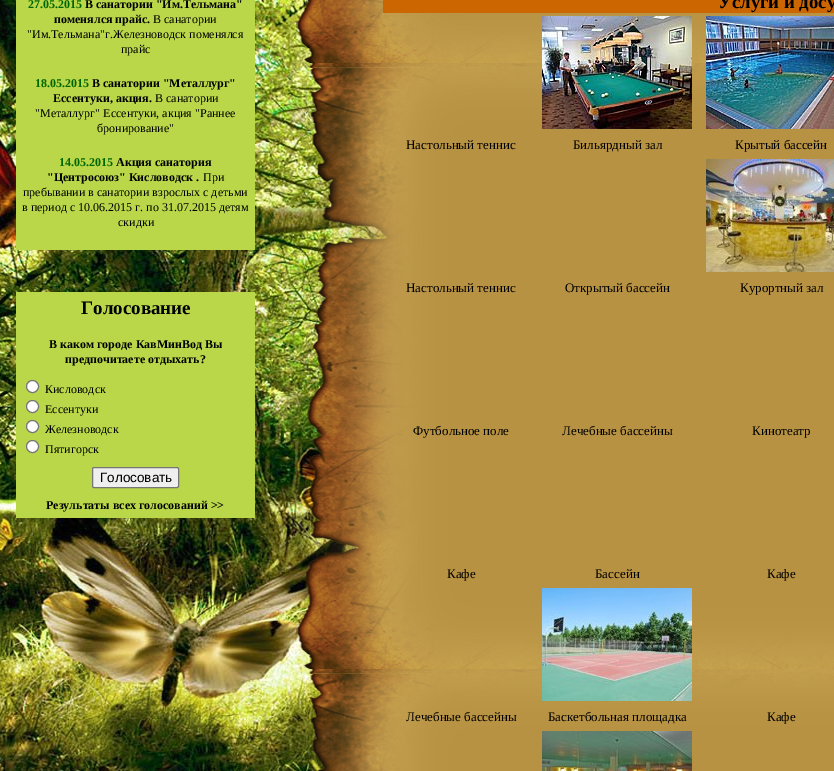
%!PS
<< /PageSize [834 771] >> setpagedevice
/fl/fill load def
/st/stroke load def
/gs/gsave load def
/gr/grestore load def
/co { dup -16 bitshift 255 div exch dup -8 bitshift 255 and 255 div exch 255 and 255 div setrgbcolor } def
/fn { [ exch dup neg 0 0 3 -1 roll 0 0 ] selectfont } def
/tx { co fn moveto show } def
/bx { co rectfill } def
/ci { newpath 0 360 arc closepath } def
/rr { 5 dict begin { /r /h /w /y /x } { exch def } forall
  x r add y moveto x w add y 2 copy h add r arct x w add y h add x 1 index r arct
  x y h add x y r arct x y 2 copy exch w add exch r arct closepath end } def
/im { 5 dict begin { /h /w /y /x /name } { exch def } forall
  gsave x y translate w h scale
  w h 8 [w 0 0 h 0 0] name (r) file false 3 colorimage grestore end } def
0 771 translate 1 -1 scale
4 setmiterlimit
0 0 834 771 16#FFFFFF bx
(media/1.raw) 0 0 834 771 im
16 0 239 250 16#B9D749 bx
16 292 239 226 16#B9D749 bx
16#FFFFFF co
32.5 386.5 6 ci gs fl gr
16#767676 co
st
16#FFFFFF co
32.5 406.5 6 ci gs fl gr
16#767676 co
st
16#FFFFFF co
32.5 426.5 6 ci gs fl gr
16#767676 co
st
16#FFFFFF co
32.5 446.5 6 ci gs fl gr
16#767676 co
st
16#EFEFEF co
92.5 467.5 86 20 1.5 rr gs fl gr
16#767676 co
st
(media/2.raw) 296 0 87 771 im
(media/3.raw) 383 13 451 758 im
383 0 451 13 16#CC6600 bx
(media/4.raw) 542 16 150 113 im
(media/5.raw) 706 16 128 113 im
(media/6.raw) 706 159 128 113 im
(media/7.raw) 542 588 150 113 im
(media/8.raw) 542 731 150 40 im
(27.05.2015) 28 8 /LiberationSerif-Bold 12 16#006600 tx
(В санатории "Им.Тельмана") 85 8 /LiberationSerif-Bold 12 16#000000 tx
(поменялся прайс.) 54 23 /LiberationSerif-Bold 12 16#000000 tx
(В санатории) 153 23 /LiberationSerif-Regular 12 16#000000 tx
("Им.Тельмана"г.Железноводск поменялся) 27 38 /LiberationSerif-Regular 12 16#000000 tx
(прайс) 121 53 /LiberationSerif-Regular 12 16#000000 tx
(18.05.2015) 35 87 /LiberationSerif-Bold 12 16#006600 tx
(В санатории "Металлург") 92 87 /LiberationSerif-Bold 12 16#000000 tx
(Ессентуки, акция.) 53 102 /LiberationSerif-Bold 12 16#000000 tx
(В санатории) 155 102 /LiberationSerif-Regular 12 16#000000 tx
("Металлург" Ессентуки, акция "Раннее) 35 117 /LiberationSerif-Regular 12 16#000000 tx
(бронирование") 97 132 /LiberationSerif-Regular 12 16#000000 tx
(14.05.2015) 59 166 /LiberationSerif-Bold 12 16#006600 tx
(Акция санатория) 116 166 /LiberationSerif-Bold 12 16#000000 tx
("Центросоюз" Кисловодск .) 47 181 /LiberationSerif-Bold 12 16#000000 tx
(При) 203 181 /LiberationSerif-Regular 12 16#000000 tx
(пребывании в санатории взрослых с детьми) 23 196 /LiberationSerif-Regular 12 16#000000 tx
(в период с 10.06.2015 г. по 31.07.2015 детям) 22 211 /LiberationSerif-Regular 12 16#000000 tx
(скидки) 118 226 /LiberationSerif-Regular 12 16#000000 tx
(Голосование) 81 314 /LiberationSerif-Bold 19 16#000000 tx
(В каком городе КавМинВод Вы) 49 348 /LiberationSerif-Bold 12 16#000000 tx
(предпочитаете отдыхать?) 65 363 /LiberationSerif-Bold 12 16#000000 tx
(Кисловодск) 45 393 /LiberationSerif-Regular 12 16#000000 tx
(Ессентуки) 45 413 /LiberationSerif-Regular 12 16#000000 tx
(Железноводск) 45 433 /LiberationSerif-Regular 12 16#000000 tx
(Пятигорск) 45 453 /LiberationSerif-Regular 12 16#000000 tx
(Голосовать) 100 482 /LiberationSans-Regular 13.5 16#000000 tx
(Результаты всех голосований >>) 46 509 /LiberationSerif-Bold 12 16#000000 tx
(Услуги и досу) 718 8 /LiberationSerif-Bold 18.75 16#000000 tx
(Настольный теннис) 406 149 /LiberationSerif-Regular 13 16#000000 tx
(Бильярдный зал) 573 149 /LiberationSerif-Regular 13 16#000000 tx
(Крытый бассейн) 735 149 /LiberationSerif-Regular 13 16#000000 tx
(Настольный теннис) 406 292 /LiberationSerif-Regular 13 16#000000 tx
(Открытый бассейн) 565 292 /LiberationSerif-Regular 13 16#000000 tx
(Курортный зал) 740 292 /LiberationSerif-Regular 13 16#000000 tx
(Футбольное поле) 413 435 /LiberationSerif-Regular 13 16#000000 tx
(Лечебные бассейны) 562 435 /LiberationSerif-Regular 13 16#000000 tx
(Кинотеатр) 752 435 /LiberationSerif-Regular 13 16#000000 tx
(Кафе) 447 578 /LiberationSerif-Regular 13 16#000000 tx
(Бассейн) 595 578 /LiberationSerif-Regular 13 16#000000 tx
(Кафе) 767 578 /LiberationSerif-Regular 13 16#000000 tx
(Лечебные бассейны) 406 721 /LiberationSerif-Regular 13 16#000000 tx
(Баскетбольная площадка) 548 721 /LiberationSerif-Regular 13 16#000000 tx
(Кафе) 767 721 /LiberationSerif-Regular 13 16#000000 tx
showpage
